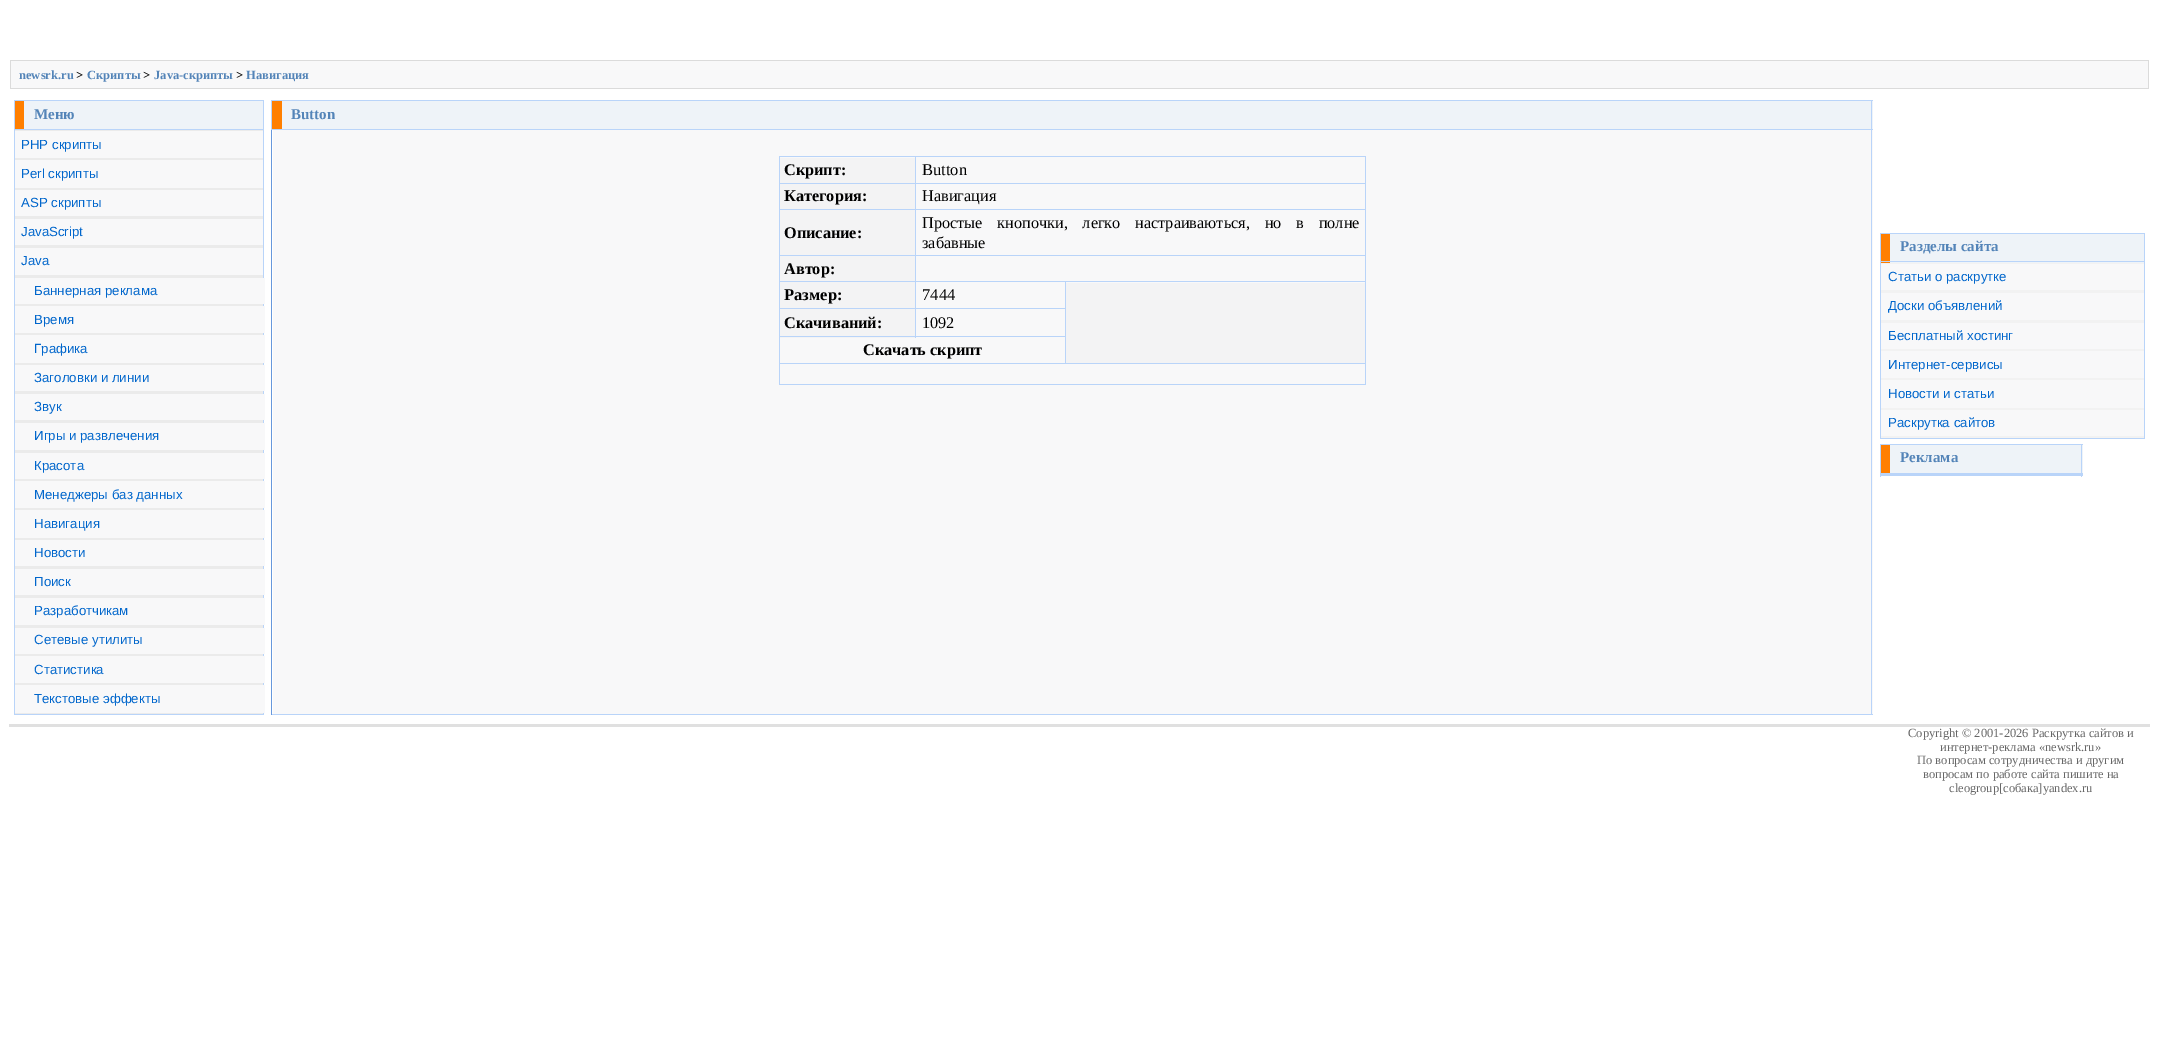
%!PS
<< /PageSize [2158 1050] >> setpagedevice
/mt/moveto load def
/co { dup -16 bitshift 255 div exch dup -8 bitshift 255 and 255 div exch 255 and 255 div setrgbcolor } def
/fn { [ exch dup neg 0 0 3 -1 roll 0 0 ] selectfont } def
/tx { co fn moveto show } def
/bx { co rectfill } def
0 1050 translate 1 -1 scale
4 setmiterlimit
0 0 2158 1050 16#FFFFFF bx
10 88 2139 1 16#DBDBDB bx
11 61 2137 27 16#F8F8F9 bx
10 60 2139 1 16#DBDBDB bx
2148 60 1 29 16#DBDBDB bx
10 60 1 29 16#DBDBDB bx
14 100 250 1 16#B9D4F9 bx
263 100 1 615 16#B9D4F9 bx
14 714 250 1 16#B9D4F9 bx
14 100 1 615 16#B9D4F9 bx
24 101 239 28 16#EEF3F8 bx
15 101 9 28 16#FF7F00 bx
15 130 248 584 16#EBEBEB bx
14 129 250 1 16#B9D4F9 bx
15 131 248 27 16#F8F8F9 bx
15 160 248 28 16#F8F8F9 bx
15 190 248 26 16#F8F8F9 bx
15 219 248 26 16#F8F8F9 bx
15 248 248 27 16#F8F8F9 bx
15 278 250 26 16#F8F8F9 bx
15 306 250 27 16#F8F8F9 bx
15 335 250 28 16#F8F8F9 bx
15 365 250 26 16#F8F8F9 bx
15 394 250 26 16#F8F8F9 bx
15 423 250 27 16#F8F8F9 bx
15 453 250 26 16#F8F8F9 bx
15 481 250 27 16#F8F8F9 bx
15 510 250 28 16#F8F8F9 bx
15 540 250 26 16#F8F8F9 bx
15 569 250 26 16#F8F8F9 bx
15 598 250 27 16#F8F8F9 bx
15 628 250 26 16#F8F8F9 bx
15 656 250 27 16#F8F8F9 bx
15 685 250 28 16#F8F8F9 bx
271 100 1602 1 16#B9D4F9 bx
282 101 1591 28 16#EEF3F8 bx
273 130 1600 584 16#F8F8F9 bx
1871 100 1 615 16#B9D4F9 bx
271 714 1602 1 16#B9D4F9 bx
271 100 1 29 16#B9D4F9 bx
272 101 10 28 16#FF7F00 bx
271 129 1 586 16#6798DC bx
271 129 1602 1 16#B9D4F9 bx
779 156 587 1 16#B9D4F9 bx
1365 156 1 229 16#B9D4F9 bx
779 384 587 1 16#B9D4F9 bx
779 156 1 229 16#B9D4F9 bx
780 158 135 25 16#F3F3F4 bx
915 183 451 1 16#B9D4F9 bx
915 209 451 1 16#B9D4F9 bx
915 255 451 1 16#B9D4F9 bx
780 256 135 52 16#F3F3F4 bx
1065 281 301 1 16#B9D4F9 bx
915 308 151 1 16#B9D4F9 bx
780 309 135 29 16#F3F3F4 bx
779 336 287 1 16#B9D4F9 bx
779 363 587 1 16#B9D4F9 bx
1065 281 1 83 16#B9D4F9 bx
915 281 151 1 16#B9D4F9 bx
915 308 1 30 16#B9D4F9 bx
779 308 137 1 16#B9D4F9 bx
915 281 1 28 16#B9D4F9 bx
779 281 137 1 16#B9D4F9 bx
915 255 1 28 16#B9D4F9 bx
779 255 137 1 16#B9D4F9 bx
915 209 1 47 16#B9D4F9 bx
779 209 137 1 16#B9D4F9 bx
915 183 1 27 16#B9D4F9 bx
779 183 137 1 16#B9D4F9 bx
915 156 1 28 16#B9D4F9 bx
780 184 135 25 16#F3F3F4 bx
780 210 135 45 16#F3F3F4 bx
1066 283 299 80 16#F3F3F4 bx
1880 233 265 1 16#B9D4F9 bx
2144 233 1 206 16#B9D4F9 bx
1880 438 265 1 16#B9D4F9 bx
1880 233 1 206 16#B9D4F9 bx
1890 234 254 29 16#EEF3F8 bx
1881 234 9 29 16#FF7F00 bx
1881 263 263 175 16#F2F2F2 bx
1880 261 265 1 16#B9D4F9 bx
1881 264 263 26 16#F8F8F9 bx
1881 293 263 27 16#F8F8F9 bx
1881 323 263 26 16#F8F8F9 bx
1881 351 263 27 16#F8F8F9 bx
1881 380 263 28 16#F8F8F9 bx
1881 410 263 26 16#F8F8F9 bx
1880 444 203 1 16#B9D4F9 bx
1890 445 193 28 16#EEF3F8 bx
2081 444 1 32 16#B9D4F9 bx
1880 475 203 1 16#B9D4F9 bx
1880 444 1 32 16#B9D4F9 bx
1881 445 9 28 16#FF7F00 bx
1880 473 203 2 16#B9D4F9 bx
2081 474 1 3 16#B9D4F9 bx
1880 474 1 3 16#B9D4F9 bx
9 724 2141 3 16#E0E0E0 bx
(newsrk.ru) 19 79 /LiberationSerif-Bold 12.5 16#5384B8 tx
(>) 76 79 /LiberationSerif-Bold 12.5 16#000000 tx
(Скрипты) 87 79 /LiberationSerif-Bold 12.5 16#5384B8 tx
(>) 143 79 /LiberationSerif-Bold 12.5 16#000000 tx
(Java-скрипты) 154 79 /LiberationSerif-Bold 12.5 16#5384B8 tx
(>) 236 79 /LiberationSerif-Bold 12.5 16#000000 tx
(Навигация) 246 79 /LiberationSerif-Bold 12.5 16#5384B8 tx
(Меню) 34 119 /LiberationSerif-Bold 15 16#5384B8 tx
(PHP скрипты) 21 149 /LiberationSans-Regular 13.25 16#0066CC tx
(Perl скрипты) 21 178 /LiberationSans-Regular 13.25 16#0066CC tx
(ASP скрипты) 21 207 /LiberationSans-Regular 13.25 16#0066CC tx
(JavaScript) 21 236 /LiberationSans-Regular 13.25 16#0066CC tx
(Java) 21 265 /LiberationSans-Regular 13.25 16#0066CC tx
(Баннерная реклама) 34 295 /LiberationSans-Regular 13.25 16#0066CC tx
(Время) 34 324 /LiberationSans-Regular 13.25 16#0066CC tx
(Графика) 34 353 /LiberationSans-Regular 13.25 16#0066CC tx
(Заголовки и линии) 34 382 /LiberationSans-Regular 13.25 16#0066CC tx
(Звук) 34 411 /LiberationSans-Regular 13.25 16#0066CC tx
(Игры и развлечения) 34 440 /LiberationSans-Regular 13.25 16#0066CC tx
(Красота) 34 470 /LiberationSans-Regular 13.25 16#0066CC tx
(Менеджеры баз данных) 34 499 /LiberationSans-Regular 13.25 16#0066CC tx
(Навигация) 34 528 /LiberationSans-Regular 13.25 16#0066CC tx
(Новости) 34 557 /LiberationSans-Regular 13.25 16#0066CC tx
(Поиск) 34 586 /LiberationSans-Regular 13.25 16#0066CC tx
(Разработчикам) 34 615 /LiberationSans-Regular 13.25 16#0066CC tx
(Сетевые утилиты) 34 644 /LiberationSans-Regular 13.25 16#0066CC tx
(Статистика) 34 674 /LiberationSans-Regular 13.25 16#0066CC tx
(Текстовые эффекты) 34 703 /LiberationSans-Regular 13.25 16#0066CC tx
(Button) 291 119 /LiberationSerif-Bold 15 16#5384B8 tx
(Скрипт:) 784 175 /LiberationSerif-Bold 16.25 16#000000 tx
(Button) 922 175 /LiberationSerif-Regular 16.5 16#000000 tx
(Категория:) 784 201 /LiberationSerif-Bold 16.25 16#000000 tx
(Навигация) 922 201 /LiberationSerif-Regular 16.25 16#000000 tx
(Описание:) 784 238 /LiberationSerif-Bold 16.25 16#000000 tx
/LiberationSerif-Regular 16.25 fn
922 228 mt 10.75 0 32 (Простые кнопочки, легко настраиваються, но в полне) widthshow
(забавные) 922 248 /LiberationSerif-Regular 16.25 16#000000 tx
(Автор:) 784 274 /LiberationSerif-Bold 16.25 16#000000 tx
(Размер:) 784 300 /LiberationSerif-Bold 16.5 16#000000 tx
(7444) 922 300 /LiberationSerif-Regular 16.5 16#000000 tx
(Скачиваний:) 784 328 /LiberationSerif-Bold 16.25 16#000000 tx
(1092) 922 328 /LiberationSerif-Regular 16.25 16#000000 tx
(Скачать скрипт) 863 355 /LiberationSerif-Bold 16.25 16#000000 tx
(Разделы сайта) 1900 251 /LiberationSerif-Bold 15 16#5384B8 tx
(Статьи о раскрутке) 1888 281 /LiberationSans-Regular 13.25 16#0066CC tx
(Доски объявлений) 1888 310 /LiberationSans-Regular 13.25 16#0066CC tx
(Бесплатный хостинг) 1888 340 /LiberationSans-Regular 13.25 16#0066CC tx
(Интернет-сервисы) 1888 369 /LiberationSans-Regular 13.25 16#0066CC tx
(Новости и статьи) 1888 398 /LiberationSans-Regular 13.25 16#0066CC tx
(Раскрутка сайтов) 1888 427 /LiberationSans-Regular 13.25 16#0066CC tx
(Реклама) 1900 462 /LiberationSerif-Bold 15 16#5384B8 tx
(Copyright © 2001-2026 Раскрутка сайтов и) 1908 737 /LiberationSerif-Regular 12.5 16#666666 tx
(интернет-реклама «newsrk.ru») 1940 751 /LiberationSerif-Regular 12.5 16#666666 tx
(По вопросам сотрудничества и другим) 1917 764 /LiberationSerif-Regular 12.5 16#666666 tx
(вопросам по работе сайта пишите на) 1923 778 /LiberationSerif-Regular 12.5 16#666666 tx
(cleogroup[собака]yandex.ru) 1949 792 /LiberationSerif-Regular 12.5 16#666666 tx
showpage
